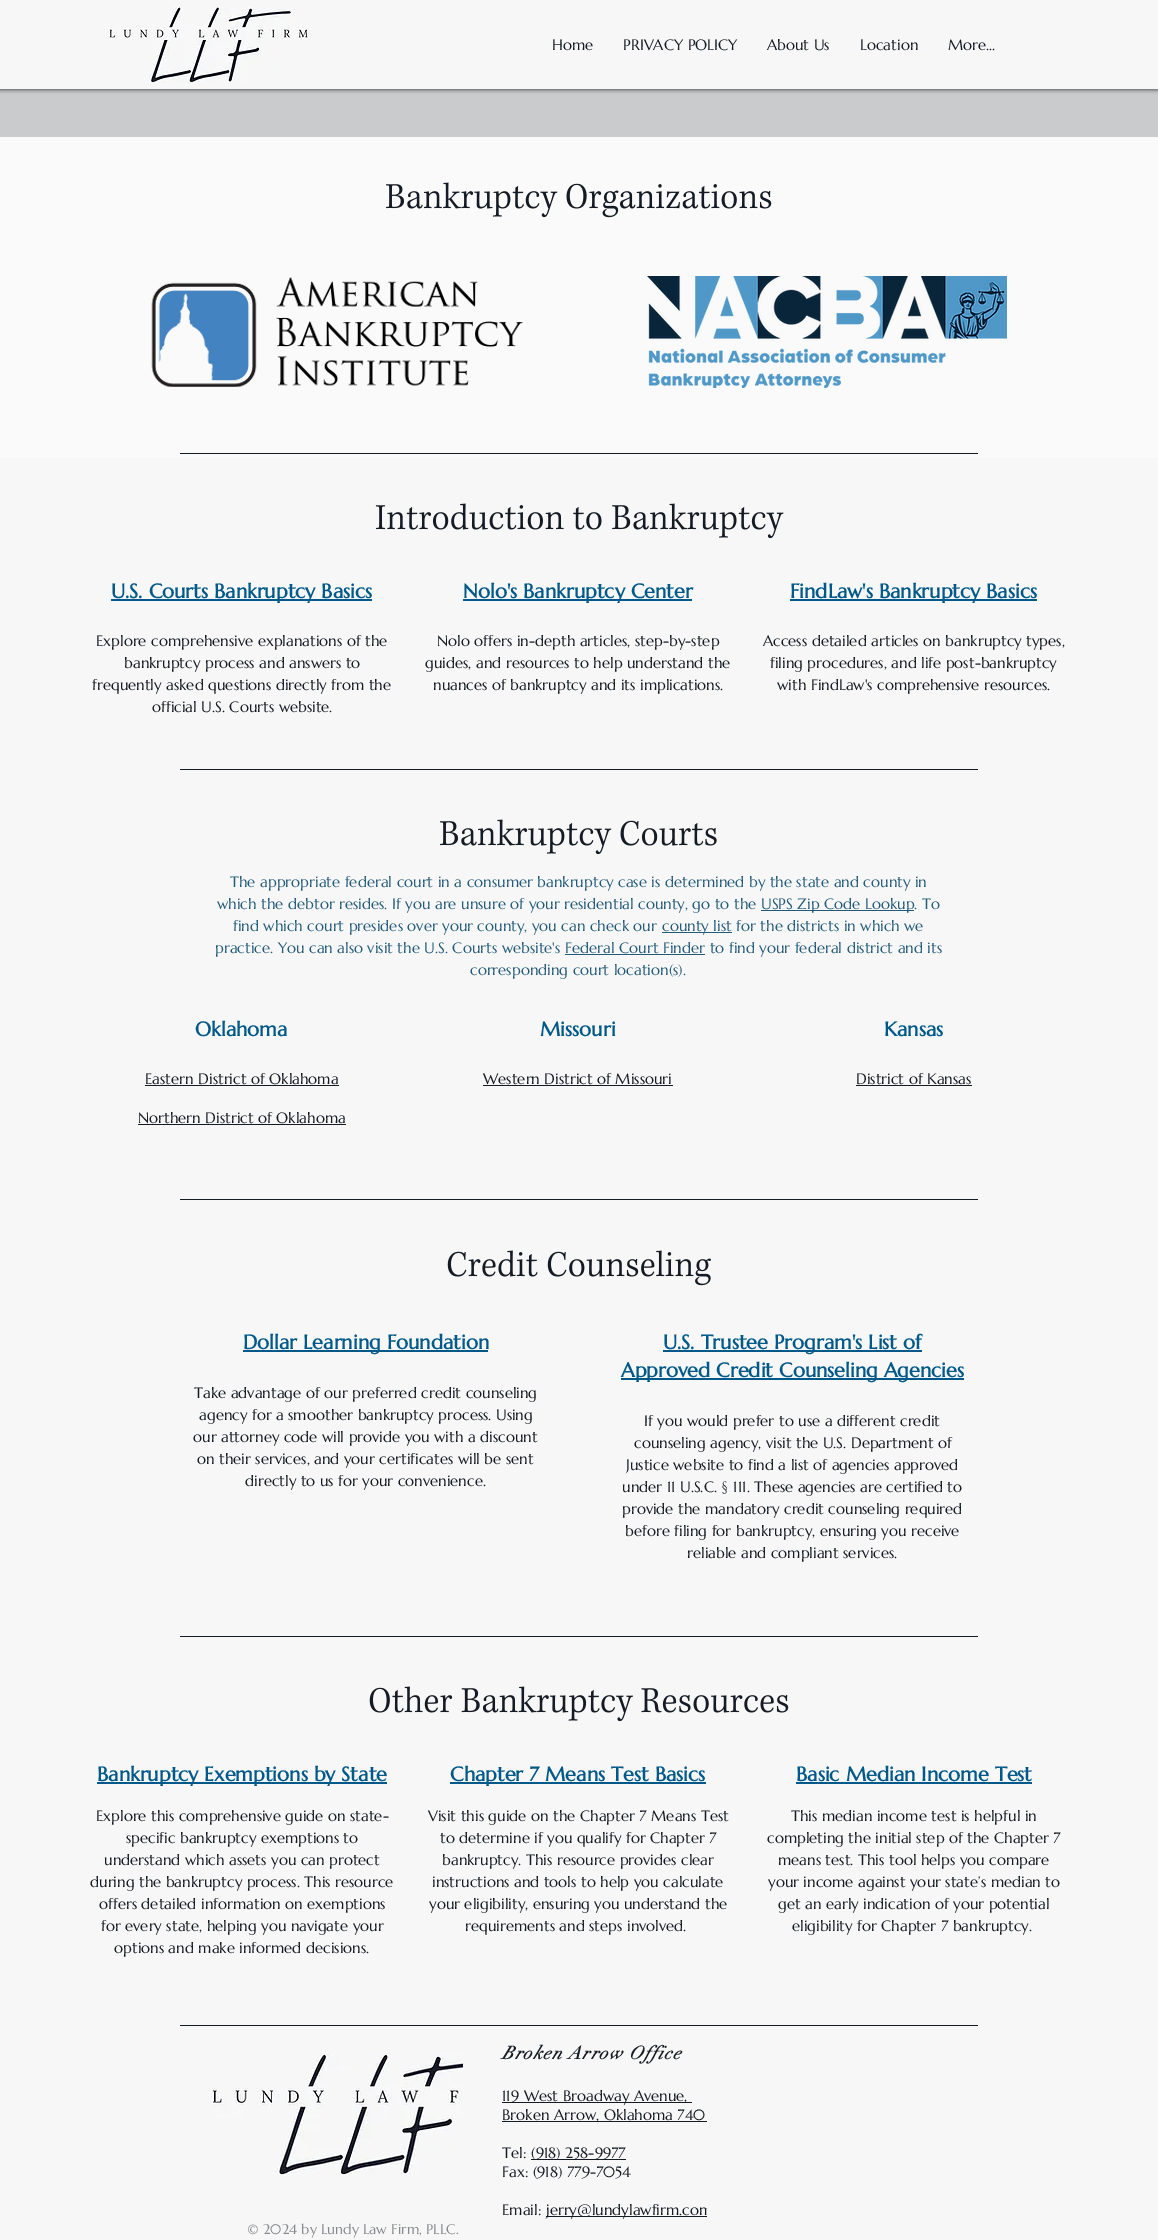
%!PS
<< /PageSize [1158 2240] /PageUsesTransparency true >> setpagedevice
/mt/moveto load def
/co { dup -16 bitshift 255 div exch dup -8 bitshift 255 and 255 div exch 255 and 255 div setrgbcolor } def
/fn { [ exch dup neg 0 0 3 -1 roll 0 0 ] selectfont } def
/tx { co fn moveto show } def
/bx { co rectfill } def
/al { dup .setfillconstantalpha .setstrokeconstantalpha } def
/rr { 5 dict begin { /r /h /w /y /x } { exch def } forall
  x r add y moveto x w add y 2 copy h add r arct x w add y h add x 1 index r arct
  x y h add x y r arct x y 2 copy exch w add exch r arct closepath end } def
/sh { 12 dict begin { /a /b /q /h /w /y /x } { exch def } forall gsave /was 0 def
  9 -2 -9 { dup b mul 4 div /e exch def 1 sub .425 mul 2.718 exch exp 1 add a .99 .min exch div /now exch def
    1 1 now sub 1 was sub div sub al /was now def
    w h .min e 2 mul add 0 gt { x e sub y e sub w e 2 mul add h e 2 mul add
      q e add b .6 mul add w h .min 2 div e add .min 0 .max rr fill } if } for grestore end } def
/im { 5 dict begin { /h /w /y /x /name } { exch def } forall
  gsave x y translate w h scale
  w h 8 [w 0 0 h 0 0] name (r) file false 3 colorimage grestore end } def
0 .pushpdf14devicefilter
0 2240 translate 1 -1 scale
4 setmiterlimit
0 0 1158 2240 16#F7F7F7 bx
0 89 1158 48 16#CACBCD bx
16#000000 co
0 1 1158 89 0 2 .6 sh
0 0 1158 89 16#F7F7F7 bx
(media/1.raw) 109 7 200 75 im
0 137 1158 321 16#FAFAFA bx
(media/2.raw) 386 182 386 36 im
(media/3.raw) 151 277 372 110 im
(media/4.raw) 647 276 360 112 im
180 453 798 1 16#151B24 bx
(media/5.raw) 375 503 409 36 im
111 599 261 2 16#015989 bx
463 599 229 2 16#015989 bx
790 599 247 2 16#015989 bx
180 769 798 1 16#151B24 bx
(media/6.raw) 440 819 277 36 im
761 910 153 1 16#245B79 bx
662 932 70 1 16#245B79 bx
565 954 140 1 16#245B79 bx
145 1085 194 1 16#151B24 bx
138 1124 208 1 16#151B24 bx
483 1085 190 1 16#151B24 bx
856 1085 116 1 16#151B24 bx
180 1199 798 1 16#151B24 bx
(media/7.raw) 447 1250 264 36 im
243 1350 245 2 16#015989 bx
663 1350 259 2 16#015989 bx
621 1378 343 2 16#015989 bx
180 1636 798 1 16#151B24 bx
(media/8.raw) 369 1686 420 36 im
97 1782 290 2 16#015989 bx
450 1782 256 2 16#015989 bx
796 1782 236 2 16#015989 bx
180 2025 798 1 16#151B24 bx
502 2102 190 1 16#151B24 bx
502 2121 205 1 16#151B24 bx
531 2159 95 1 16#151B24 bx
546 2216 166 1 16#151B24 bx
(media/9.raw) 212 2054 251 121 im
(Home) 552 50 /Marcellus-Regular 15 16#151B24 tx
(PRIVACY POLICY) 623 50 /Marcellus-Regular 15 16#151B24 tx
(About Us) 767 50 /Marcellus-Regular 15 16#151B24 tx
(Location) 860 50 /Marcellus-Regular 15 16#151B24 tx
(More...) 948 50 /Marcellus-Regular 15 16#151B24 tx
(U.S. Courts Bankruptcy Basics) 111 598 /Marcellus-Bold 20 16#015989 tx
(Explore comprehensive explanations of the) 96 646 /Marcellus-Regular 15 16#151B24 tx
(bankruptcy process and answers to) 124 668 /Marcellus-Regular 15 16#151B24 tx
(frequently asked questions directly from the) 92 690 /Marcellus-Regular 15 16#151B24 tx
(official U.S. Courts website.) 152 712 /Marcellus-Regular 15 16#151B24 tx
(Nolo's Bankruptcy Center) 463 598 /Marcellus-Bold 20 16#015989 tx
(Nolo offers in-depth articles, step-by-step) 437 646 /Marcellus-Regular 15 16#151B24 tx
(guides, and resources to help understand the) 425 668 /Marcellus-Regular 15 16#151B24 tx
(nuances of bankruptcy and its implications.) 433 690 /Marcellus-Regular 15 16#151B24 tx
(FindLaw's Bankruptcy Basics) 790 598 /Marcellus-Bold 20 16#015989 tx
(Access detailed articles on bankruptcy types,) 763 646 /Marcellus-Regular 15 16#151B24 tx
(filing procedures, and life post-bankruptcy) 770 668 /Marcellus-Regular 15 16#151B24 tx
(with FindLaw's comprehensive resources.) 777 690 /Marcellus-Regular 15 16#151B24 tx
(The appropriate federal court in a consumer bankruptcy case is determined by the state and county in) 230 887 /Marcellus-Regular 15 16#245B79 tx
(which the debtor resides. If you are unsure of your residential county, go to the) 217 909 /Marcellus-Regular 15 16#245B79 tx
(USPS Zip Code Lookup. To) 761 909 /Marcellus-Regular 15 16#245B79 tx
(find which court presides over your county, you can check our) 233 931 /Marcellus-Regular 15 16#245B79 tx
(county list for the districts in which we) 662 931 /Marcellus-Regular 15 16#245B79 tx
(practice. You can also visit the U.S. Courts website's Federal Court Finder to find your federal district and its) 215 953 /Marcellus-Regular 15 16#245B79 tx
(corresponding court location\(s\).) 470 975 /Marcellus-Regular 15 16#245B79 tx
(Oklahoma) 195 1036 /Marcellus-Bold 20 16#015989 tx
(Eastern District of Oklahoma) 145 1084 /Marcellus-Regular 15 16#151B24 tx
(Northern District of Oklahoma) 138 1123 /Marcellus-Regular 15 16#151B24 tx
(Missouri) 540 1036 /Marcellus-Bold 20 16#015989 tx
(Western District of Missouri) 483 1084 /Marcellus-Regular 15 16#151B24 tx
(Kansas) 884 1036 /Marcellus-Bold 20 16#015989 tx
(District of Kansas) 856 1084 /Marcellus-Regular 15 16#151B24 tx
(Dollar Learning Foundation) 243 1349 /Marcellus-Bold 20 16#015989 tx
(Take advantage of our preferred credit counseling) 194 1398 /Marcellus-Regular 15 16#151B24 tx
(agency for a smoother bankruptcy process. Using) 199 1420 /Marcellus-Regular 15 16#151B24 tx
(our attorney code will provide you with a discount) 193 1442 /Marcellus-Regular 15 16#151B24 tx
(on their services, and your certificates will be sent) 197 1464 /Marcellus-Regular 15 16#151B24 tx
(directly to us for your convenience.) 245 1486 /Marcellus-Regular 15 16#151B24 tx
(U.S. Trustee Program's List of) 663 1349 /Marcellus-Bold 20 16#015989 tx
(Approved Credit Counseling Agencies) 621 1377 /Marcellus-Bold 20 16#015989 tx
(If you would prefer to use a different credit) 644 1426 /Marcellus-Regular 15 16#151B24 tx
(counseling agency, visit the U.S. Department of) 634 1448 /Marcellus-Regular 15 16#151B24 tx
(Justice website to find a list of agencies approved) 626 1470 /Marcellus-Regular 15 16#151B24 tx
(under 11 U.S.C. § 111. These agencies are certified to) 622 1492 /Marcellus-Regular 15 16#151B24 tx
(provide the mandatory credit counseling required) 622 1514 /Marcellus-Regular 15 16#151B24 tx
(before filing for bankruptcy, ensuring you receive) 625 1536 /Marcellus-Regular 15 16#151B24 tx
(reliable and compliant services.) 687 1558 /Marcellus-Regular 15 16#151B24 tx
(Bankruptcy Exemptions by State) 97 1781 /Marcellus-Bold 20 16#015989 tx
(Explore this comprehensive guide on state-) 96 1821 /Marcellus-Regular 15 16#151B24 tx
(specific bankruptcy exemptions to) 126 1843 /Marcellus-Regular 15 16#151B24 tx
(understand which assets you can protect) 104 1865 /Marcellus-Regular 15 16#151B24 tx
(during the bankruptcy process. This resource) 90 1887 /Marcellus-Regular 15 16#151B24 tx
(offers detailed information on exemptions) 99 1909 /Marcellus-Regular 15 16#151B24 tx
(for every state, helping you navigate your) 101 1931 /Marcellus-Regular 15 16#151B24 tx
(options and make informed decisions.) 114 1953 /Marcellus-Regular 15 16#151B24 tx
(Chapter 7 Means Test Basics) 450 1781 /Marcellus-Bold 20 16#015989 tx
(Visit this guide on the Chapter 7 Means Test) 428 1821 /Marcellus-Regular 15 16#151B24 tx
(to determine if you qualify for Chapter 7) 440 1843 /Marcellus-Regular 15 16#151B24 tx
(bankruptcy. This resource provides clear) 442 1865 /Marcellus-Regular 15 16#151B24 tx
(instructions and tools to help you calculate) 432 1887 /Marcellus-Regular 15 16#151B24 tx
(your eligibility, ensuring you understand the) 429 1909 /Marcellus-Regular 15 16#151B24 tx
(requirements and steps involved.) 465 1931 /Marcellus-Regular 15 16#151B24 tx
(Basic Median Income Test) 796 1781 /Marcellus-Bold 20 16#015989 tx
(This median income test is helpful in) 791 1821 /Marcellus-Regular 15 16#151B24 tx
(completing the initial step of the Chapter 7) 767 1843 /Marcellus-Regular 15 16#151B24 tx
(means test. This tool helps you compare) 778 1865 /Marcellus-Regular 15 16#151B24 tx
(your income against your state’s median to) 768 1887 /Marcellus-Regular 15 16#151B24 tx
(get an early indication of your potential) 778 1909 /Marcellus-Regular 15 16#151B24 tx
(eligibility for Chapter 7 bankruptcy.) 792 1931 /Marcellus-Regular 15 16#151B24 tx
/didot-BoldItalic 18 fn
502 2059 mt 1.1 0 (Broken Arrow Office) ashow
(119 West Broadway Avenue,) 502 2101 /Marcellus-Regular 15 16#151B24 tx
(Broken Arrow, Oklahoma 740) 502 2120 /Marcellus-Regular 15 16#151B24 tx
(Tel:) 502 2158 /Marcellus-Regular 15 16#151B24 tx
(\(918\) 258-9977) 531 2158 /Marcellus-Regular 15 16#151B24 tx
(Fax: \(918\) 779-7054) 502 2177 /Marcellus-Regular 15 16#151B24 tx
(Email:) 502 2215 /Marcellus-Regular 15 16#151B24 tx
(jerry@lundylawfirm.com) 546 2215 /Marcellus-Regular 15 16#151B24 tx
707 2207 5 10 16#F7F7F7 bx
(© 2024 by Lundy Law Firm, PLLC.) 247 2234 /Marcellus-Regular 14 16#86898E tx
.poppdf14devicefilter showpage
